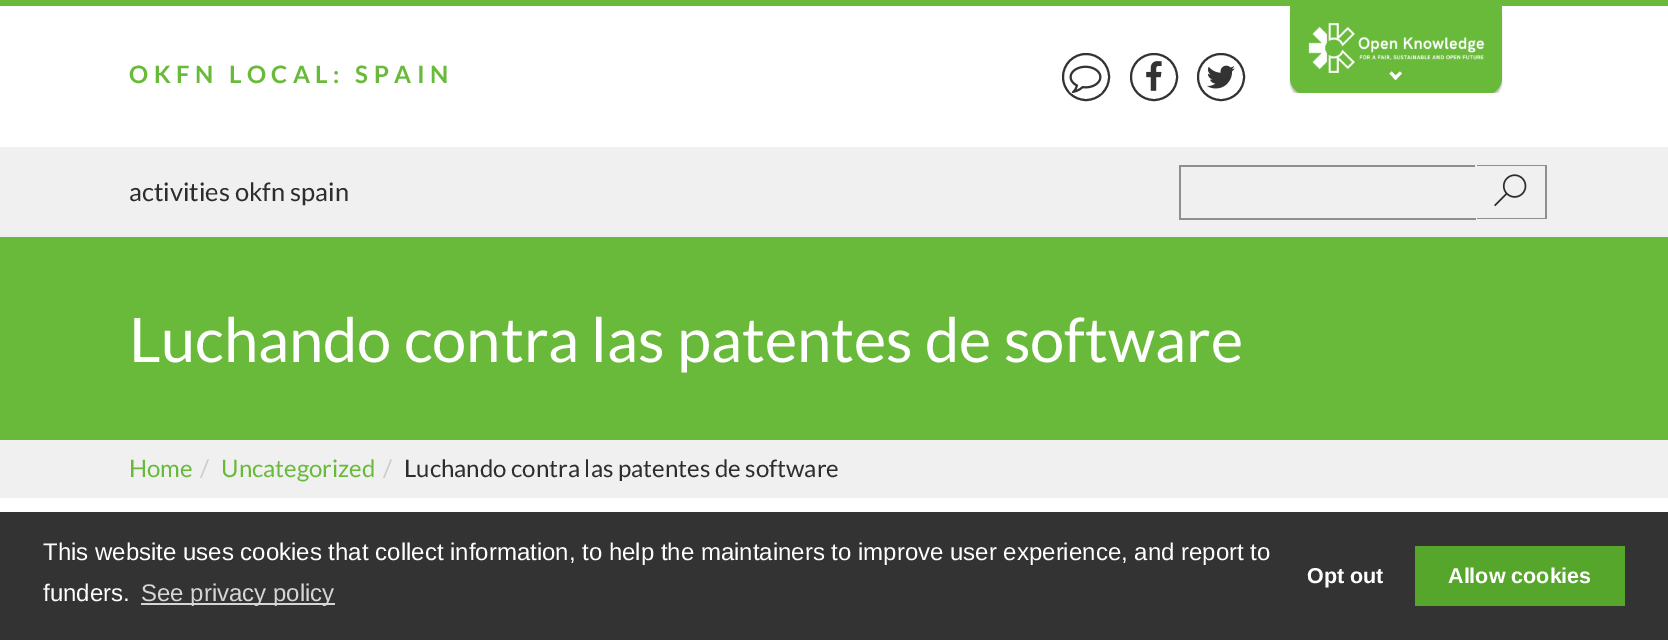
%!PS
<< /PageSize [1668 640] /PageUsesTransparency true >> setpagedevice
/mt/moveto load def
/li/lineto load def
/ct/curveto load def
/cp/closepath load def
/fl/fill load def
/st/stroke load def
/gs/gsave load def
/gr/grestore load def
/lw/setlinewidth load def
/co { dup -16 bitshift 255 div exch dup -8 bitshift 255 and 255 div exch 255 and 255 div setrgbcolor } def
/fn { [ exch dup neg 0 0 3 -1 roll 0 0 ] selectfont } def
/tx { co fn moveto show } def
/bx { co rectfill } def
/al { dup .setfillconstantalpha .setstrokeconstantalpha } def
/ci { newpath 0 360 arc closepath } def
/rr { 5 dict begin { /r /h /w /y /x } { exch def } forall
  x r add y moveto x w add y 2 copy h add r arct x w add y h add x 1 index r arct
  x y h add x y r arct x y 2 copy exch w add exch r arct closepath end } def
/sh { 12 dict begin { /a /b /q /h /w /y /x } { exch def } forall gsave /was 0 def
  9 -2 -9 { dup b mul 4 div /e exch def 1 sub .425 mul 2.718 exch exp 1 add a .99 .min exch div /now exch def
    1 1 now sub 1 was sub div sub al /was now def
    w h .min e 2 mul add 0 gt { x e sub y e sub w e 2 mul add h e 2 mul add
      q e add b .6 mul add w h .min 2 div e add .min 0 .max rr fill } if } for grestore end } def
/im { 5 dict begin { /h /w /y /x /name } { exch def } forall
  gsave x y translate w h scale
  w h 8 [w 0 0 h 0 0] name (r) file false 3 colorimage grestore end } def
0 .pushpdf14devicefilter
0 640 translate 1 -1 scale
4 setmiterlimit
0 0 1668 640 16#FFFFFF bx
0 0 1668 6 16#69B93B bx
16#333333 co
2 lw
1086 77 23 ci st
(media/1.raw) 1069 65 33 29 im
1154 77 23 ci st
(media/2.raw) 1146 61 16 30 im
1221 77 23 ci st
(media/3.raw) 1207 65 28 24 im
gs
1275 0 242 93 rectclip
16#000000 co
1290 -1 212 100 17 .5 .2 sh
gr
gs
1275 0 242 93 rectclip
16#69B93B co
1290 0 mt 1502 0 li 1502 78 li 1502 87.5 1494.5 95 1485 95 ct 1307 95 li 1297.5 95 1290 87.5 1290 78 ct cp fl
gr
(media/4.raw) 1308 23 177 50 im
16#FFFFFF co
1402 73.5 mt 1395.5 80 li 1393.5 77.5 li 1400 71.5 li cp fl
1398 77.5 mt 1395.5 80 li 1389.5 73.5 li 1391.5 71.5 li cp fl
0 147 1668 90 16#F0F0F0 bx
16#8E8E8E co
1474 165 mt 1546 165 li 1545 166 li 1476 166 li cp fl
1179 165 297 2 16#8E8E8E bx
1545 165 2 54 16#8E8E8E bx
1546 219 mt 1474 219 li 1476 218 li 1545 218 li cp fl
1475 165 2 54 16#F0F0F0 bx
1179 218 297 2 16#8E8E8E bx
1179 165 2 54 16#8E8E8E bx
(media/5.raw) 1494 174 33 33 im
0 237 1668 203 16#69B93B bx
0 440 1668 58 16#F0F0F0 bx
0 512 1668 128 16#333333 bx
141 603 194 2 16#D6D6D6 bx
1415 546 210 60 16#56A62B bx
/Lato-Bold 24 fn
16#69B93B co
129 83 mt 5.5 0 (OKFN LOCAL: SPAIN) ashow
(activities okfn spain) 129 201 /Lato-Regular 25.5 16#2D2D2D tx
(Luchando contra las patentes de software) 129 362 /Lato-Regular 61.5 16#FFFFFF tx
(Home) 129 477 /Lato-Regular 24 16#69B93B tx
(/) 200 477 /Lato-Regular 24 16#CCCCCC tx
(Uncategorized) 221 477 /Lato-Regular 24 16#69B93B tx
(/) 383 477 /Lato-Regular 24 16#CCCCCC tx
(Luchando contra las patentes de software) 404 477 /Lato-Regular 24 16#2D2D2D tx
(This website uses cookies that collect information, to help the maintainers to improve user experience, and report to) 43 560 /LiberationSans-Regular 24 16#FFFFFF tx
(funders.) 43 601 /LiberationSans-Regular 24 16#FFFFFF tx
(See privacy policy) 141 601 /LiberationSans-Regular 24 16#D6D6D6 tx
(Opt out) 1307 583 /LiberationSans-Bold 21.5 16#FFFFFF tx
(Allow cookies) 1448 583 /LiberationSans-Bold 21.5 16#FFFFFF tx
.poppdf14devicefilter showpage
